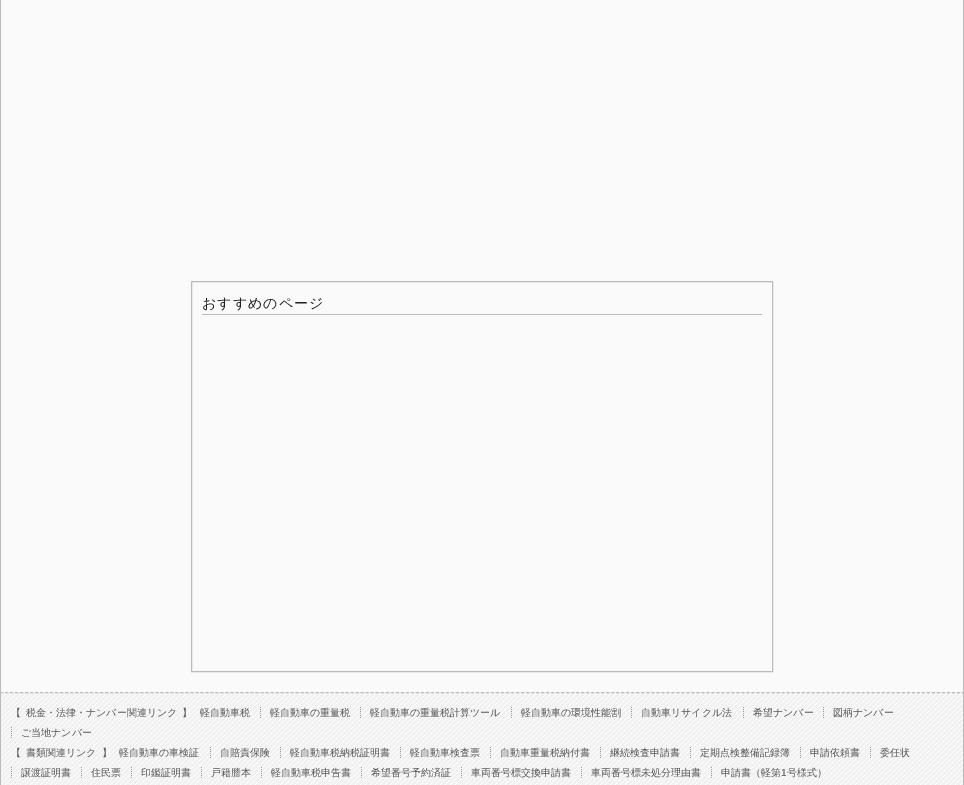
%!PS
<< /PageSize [964 785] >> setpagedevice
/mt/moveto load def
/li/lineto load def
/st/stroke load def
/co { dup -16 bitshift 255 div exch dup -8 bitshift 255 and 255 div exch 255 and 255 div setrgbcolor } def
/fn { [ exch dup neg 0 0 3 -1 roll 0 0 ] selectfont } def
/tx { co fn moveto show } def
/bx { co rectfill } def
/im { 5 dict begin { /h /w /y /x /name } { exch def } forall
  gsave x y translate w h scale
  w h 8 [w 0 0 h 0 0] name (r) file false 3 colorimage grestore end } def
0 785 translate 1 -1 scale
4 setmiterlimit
0 0 964 785 16#FAFAFA bx
963 0 1 692 16#BBBBBB bx
0 0 1 692 16#BBBBBB bx
191.5 281.5 581 390 rectstroke
202 314 560 1 16#BBBBBB bx
1 692 962 93 16#F1F1F1 bx
(media/1.raw) 1 693 962 92 im
16#BBBBBB co
[3 2.01] 0 setdash
0 692.5 mt 964 692.5 li st
963 692 1 93 16#BBBBBB bx
0 692 1 93 16#BBBBBB bx
(media/2.raw) 260 707 1 11 im
(media/2.raw) 360 707 1 11 im
(media/3.raw) 511 707 1 11 im
(media/3.raw) 631 707 1 11 im
(media/4.raw) 743 707 1 11 im
(media/4.raw) 823 707 1 11 im
(media/3.raw) 11 727 1 11 im
(media/2.raw) 210 747 1 11 im
(media/2.raw) 280 747 1 11 im
(media/2.raw) 400 747 1 11 im
(media/2.raw) 490 747 1 11 im
(media/2.raw) 600 747 1 11 im
(media/2.raw) 690 747 1 11 im
(media/2.raw) 800 747 1 11 im
(media/2.raw) 870 747 1 11 im
(media/3.raw) 11 767 1 11 im
(media/3.raw) 81 767 1 11 im
(media/3.raw) 131 767 1 11 im
(media/3.raw) 201 767 1 11 im
(media/3.raw) 261 767 1 11 im
(media/3.raw) 361 767 1 11 im
(media/3.raw) 461 767 1 11 im
(media/3.raw) 581 767 1 11 im
(media/3.raw) 711 767 1 11 im
/WenQuanYiZenHei-Medium 14 fn
16#222222 co
202 308 mt 1 0 (おすすめのページ) ashow
(【) 11 716 /WenQuanYiZenHei-Medium 10 16#555555 tx
(税金・法律・ナンバー関連リンク) 26 716 /WenQuanYiZenHei-Medium 10 16#555555 tx
(】) 182 716 /WenQuanYiZenHei-Medium 10 16#555555 tx
(軽自動車税) 200 716 /WenQuanYiZenHei-Medium 10 16#555555 tx
(軽自動車の重量税) 270 716 /WenQuanYiZenHei-Medium 10 16#555555 tx
(軽自動車の重量税計算ツール) 370 716 /WenQuanYiZenHei-Medium 10 16#555555 tx
(軽自動車の環境性能割) 521 716 /WenQuanYiZenHei-Medium 10 16#555555 tx
(自動車リサイクル法) 641 716 /WenQuanYiZenHei-Medium 10 16#555555 tx
(希望ナンバー) 753 716 /WenQuanYiZenHei-Medium 10 16#555555 tx
(図柄ナンバー) 833 716 /WenQuanYiZenHei-Medium 10 16#555555 tx
(ご当地ナンバー) 21 736 /WenQuanYiZenHei-Medium 10 16#555555 tx
(【) 11 756 /WenQuanYiZenHei-Medium 10 16#555555 tx
(書類関連リンク) 26 756 /WenQuanYiZenHei-Medium 10 16#555555 tx
(】) 102 756 /WenQuanYiZenHei-Medium 10 16#555555 tx
(軽自動車の車検証) 119 756 /WenQuanYiZenHei-Medium 10 16#555555 tx
(自賠責保険) 220 756 /WenQuanYiZenHei-Medium 10 16#555555 tx
(軽自動車税納税証明書) 290 756 /WenQuanYiZenHei-Medium 10 16#555555 tx
(軽自動車検査票) 410 756 /WenQuanYiZenHei-Medium 10 16#555555 tx
(自動車重量税納付書) 500 756 /WenQuanYiZenHei-Medium 10 16#555555 tx
(継続検査申請書) 610 756 /WenQuanYiZenHei-Medium 10 16#555555 tx
(定期点検整備記録簿) 700 756 /WenQuanYiZenHei-Medium 10 16#555555 tx
(申請依頼書) 810 756 /WenQuanYiZenHei-Medium 10 16#555555 tx
(委任状) 880 756 /WenQuanYiZenHei-Medium 10 16#555555 tx
(譲渡証明書) 21 776 /WenQuanYiZenHei-Medium 10 16#555555 tx
(住民票) 91 776 /WenQuanYiZenHei-Medium 10 16#555555 tx
(印鑑証明書) 141 776 /WenQuanYiZenHei-Medium 10 16#555555 tx
(戸籍謄本) 211 776 /WenQuanYiZenHei-Medium 10 16#555555 tx
(軽自動車税申告書) 271 776 /WenQuanYiZenHei-Medium 10 16#555555 tx
(希望番号予約済証) 371 776 /WenQuanYiZenHei-Medium 10 16#555555 tx
(車両番号標交換申請書) 471 776 /WenQuanYiZenHei-Medium 10 16#555555 tx
(車両番号標未処分理由書) 591 776 /WenQuanYiZenHei-Medium 10 16#555555 tx
(申請書（軽第) 721 776 /WenQuanYiZenHei-Medium 10 16#555555 tx
(1) 781 776 /LiberationSans-Regular 10 16#555555 tx
(号様式）) 787 776 /WenQuanYiZenHei-Medium 10 16#555555 tx
showpage
